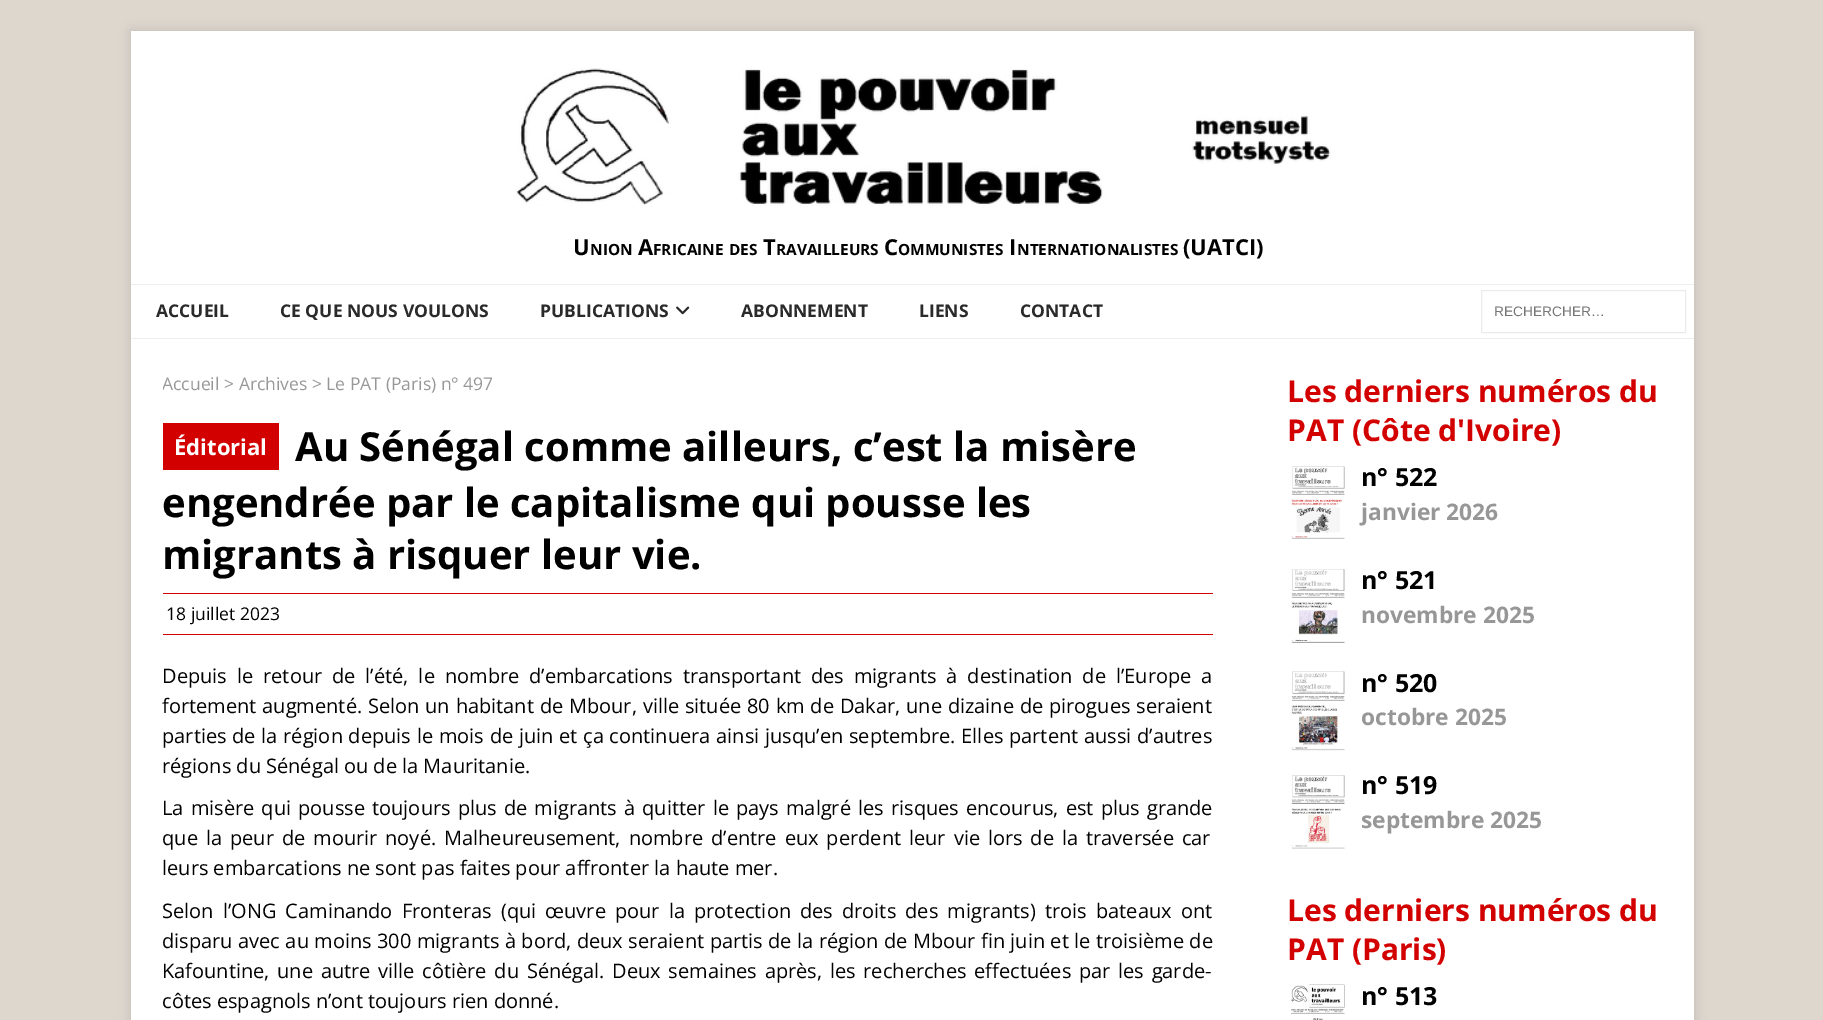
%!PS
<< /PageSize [1823 1020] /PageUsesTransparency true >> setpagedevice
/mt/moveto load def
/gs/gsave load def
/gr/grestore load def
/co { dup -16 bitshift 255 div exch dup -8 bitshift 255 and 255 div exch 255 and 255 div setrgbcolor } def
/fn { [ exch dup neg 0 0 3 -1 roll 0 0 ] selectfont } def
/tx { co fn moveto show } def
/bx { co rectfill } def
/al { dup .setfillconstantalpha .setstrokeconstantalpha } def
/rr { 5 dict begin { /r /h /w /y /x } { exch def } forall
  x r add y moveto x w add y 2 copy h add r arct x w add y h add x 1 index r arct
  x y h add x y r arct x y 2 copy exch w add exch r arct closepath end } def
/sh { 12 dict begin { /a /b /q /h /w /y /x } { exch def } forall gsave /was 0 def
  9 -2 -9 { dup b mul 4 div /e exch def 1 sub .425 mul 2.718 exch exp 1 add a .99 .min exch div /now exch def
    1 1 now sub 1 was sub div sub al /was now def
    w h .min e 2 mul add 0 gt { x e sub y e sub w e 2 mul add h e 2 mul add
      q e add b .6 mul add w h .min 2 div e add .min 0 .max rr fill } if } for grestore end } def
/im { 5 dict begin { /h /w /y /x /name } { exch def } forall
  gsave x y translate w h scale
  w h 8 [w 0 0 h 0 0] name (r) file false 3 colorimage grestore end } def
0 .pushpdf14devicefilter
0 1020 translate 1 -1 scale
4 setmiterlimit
0 0 1823 1020 16#DDD7CE bx
16#323232 co
131 31 1563 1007 0 6 .17 sh
131 31 1563 307 16#FFFFFF bx
(media/1.raw) 516 68 815 138 im
131 284 1563 1 16#EEEEEE bx
131 338 1563 1 16#EEEEEE bx
(media/2.raw) 676 306 14 9 im
16#EBEBEB co
1481.5 290.5 204 42 rectstroke
131 339 1563 681 16#FFFFFF bx
163 423 116 47 16#D30000 bx
163 593 1050 1 16#D30000 bx
163 634 1050 1 16#D30000 bx
(media/3.raw) 1291 466 54 73 im
(media/4.raw) 1291 569 54 74 im
(media/5.raw) 1291 671 54 80 im
(media/6.raw) 1291 775 54 74 im
(media/7.raw) 1291 984 54 36 im
(U) 573 255 /OpenSans-Bold 22 16#000000 tx
(NION) 590 255 /OpenSans-Bold 15.4 16#000000 tx
(A) 638 255 /OpenSans-Bold 22 16#000000 tx
(FRICAINE) 653 255 /OpenSans-Bold 15.4 16#000000 tx
(DES) 729 255 /OpenSans-Bold 15.4 16#000000 tx
(T) 763 255 /OpenSans-Bold 22 16#000000 tx
(RAVAILLEURS) 776 255 /OpenSans-Bold 15.4 16#000000 tx
(C) 884 255 /OpenSans-Bold 22 16#000000 tx
(OMMUNISTES) 898 255 /OpenSans-Bold 15.4 16#000000 tx
(I) 1009 255 /OpenSans-Bold 22 16#000000 tx
(NTERNATIONALISTES) 1017 255 /OpenSans-Bold 15.4 16#000000 tx
(\(UATCI\)) 1183 255 /OpenSans-Bold 22 16#000000 tx
(ACCUEIL) 156 317 /OpenSans-Bold 17.5 16#2A2A2A tx
(CE QUE NOUS VOULONS) 280 317 /OpenSans-Bold 17.5 16#2A2A2A tx
(PUBLICATIONS) 540 317 /OpenSans-Bold 17.5 16#2A2A2A tx
(ABONNEMENT) 741 317 /OpenSans-Bold 17.5 16#2A2A2A tx
(LIENS) 919 317 /OpenSans-Bold 17.5 16#2A2A2A tx
(CONTACT) 1020 317 /OpenSans-Bold 17.5 16#2A2A2A tx
(RECHERCHER…) 1494 316 /LiberationSans-Regular 13.75 16#757575 tx
gs
163 370 1050 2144 rectclip
(Accueil) 162 390 /OpenSans-Regular 17.5 16#979797 tx
gr
(> Archives > Le PAT \(Paris\) n° 497) 224 390 /OpenSans-Regular 17.5 16#979797 tx
(Éditorial) 174 455 /OpenSans-Bold 22 16#FFFFFF tx
(Au Sénégal comme ailleurs, c’est la misère) 295 461 /OpenSans-Bold 40 16#000000 tx
(engendrée par le capitalisme qui pousse les) 162 517 /OpenSans-Bold 40 16#000000 tx
(migrants à risquer leur vie.) 162 569 /OpenSans-Bold 40 16#000000 tx
(18 juillet 2023) 166 620 /OpenSans-Regular 17.5 16#000000 tx
/OpenSans-Regular 20 fn
162 683 mt 4.75 0 32 (Depuis le retour de l’été, le nombre d’embarcations transportant des migrants à destination de l’Europe a) widthshow
162 713 mt .6 0 32 (fortement augmenté. Selon un habitant de Mbour, ville située 80 km de Dakar, une dizaine de pirogues seraient) widthshow
162 743 mt .5 0 32 (parties de la région depuis le mois de juin et ça continuera ainsi jusqu’en septembre. Elles partent aussi d’autres) widthshow
(régions du Sénégal ou de la Mauritanie.) 162 773 /OpenSans-Regular 20 16#000000 tx
162 815 mt 1.9 0 32 (La misère qui pousse toujours plus de migrants à quitter le pays malgré les risques encourus, est plus grande) widthshow
162 845 mt 2.75 0 32 (que la peur de mourir noyé. Malheureusement, nombre d’entre eux perdent leur vie lors de la traversée car) widthshow
(leurs embarcations ne sont pas faites pour affronter la haute mer.) 162 875 /OpenSans-Regular 20 16#000000 tx
162 918 mt 3.9 0 32 (Selon l’ONG Caminando Fronteras \(qui œuvre pour la protection des droits des migrants\) trois bateaux ont) widthshow
162 948 mt .25 0 32 (disparu avec au moins 300 migrants à bord, deux seraient partis de la région de Mbour fin juin et le troisième de) widthshow
162 978 mt 2.5 0 32 (Kafountine, une autre ville côtière du Sénégal. Deux semaines après, les recherches effectuées par les garde-) widthshow
(côtes espagnols n’ont toujours rien donné.) 162 1008 /OpenSans-Regular 20 16#000000 tx
(Les derniers numéros du) 1287 402 /OpenSans-Bold 30 16#D30000 tx
(PAT \(Côte d'Ivoire\)) 1287 441 /OpenSans-Bold 30 16#D30000 tx
(n° 522) 1361 486 /OpenSans-Bold 25 16#000000 tx
(janvier 2026) 1361 520 /OpenSans-Bold 22.75 16#979797 tx
(n° 521) 1361 589 /OpenSans-Bold 25 16#000000 tx
(novembre 2025) 1361 623 /OpenSans-Bold 22.75 16#979797 tx
(n° 520) 1361 692 /OpenSans-Bold 25 16#000000 tx
(octobre 2025) 1361 725 /OpenSans-Bold 22.75 16#979797 tx
(n° 519) 1361 794 /OpenSans-Bold 25 16#000000 tx
(septembre 2025) 1361 828 /OpenSans-Bold 22.75 16#979797 tx
(Les derniers numéros du) 1287 921 /OpenSans-Bold 30 16#D30000 tx
(PAT \(Paris\)) 1287 960 /OpenSans-Bold 30 16#D30000 tx
(n° 513) 1361 1005 /OpenSans-Bold 25 16#000000 tx
.poppdf14devicefilter showpage
